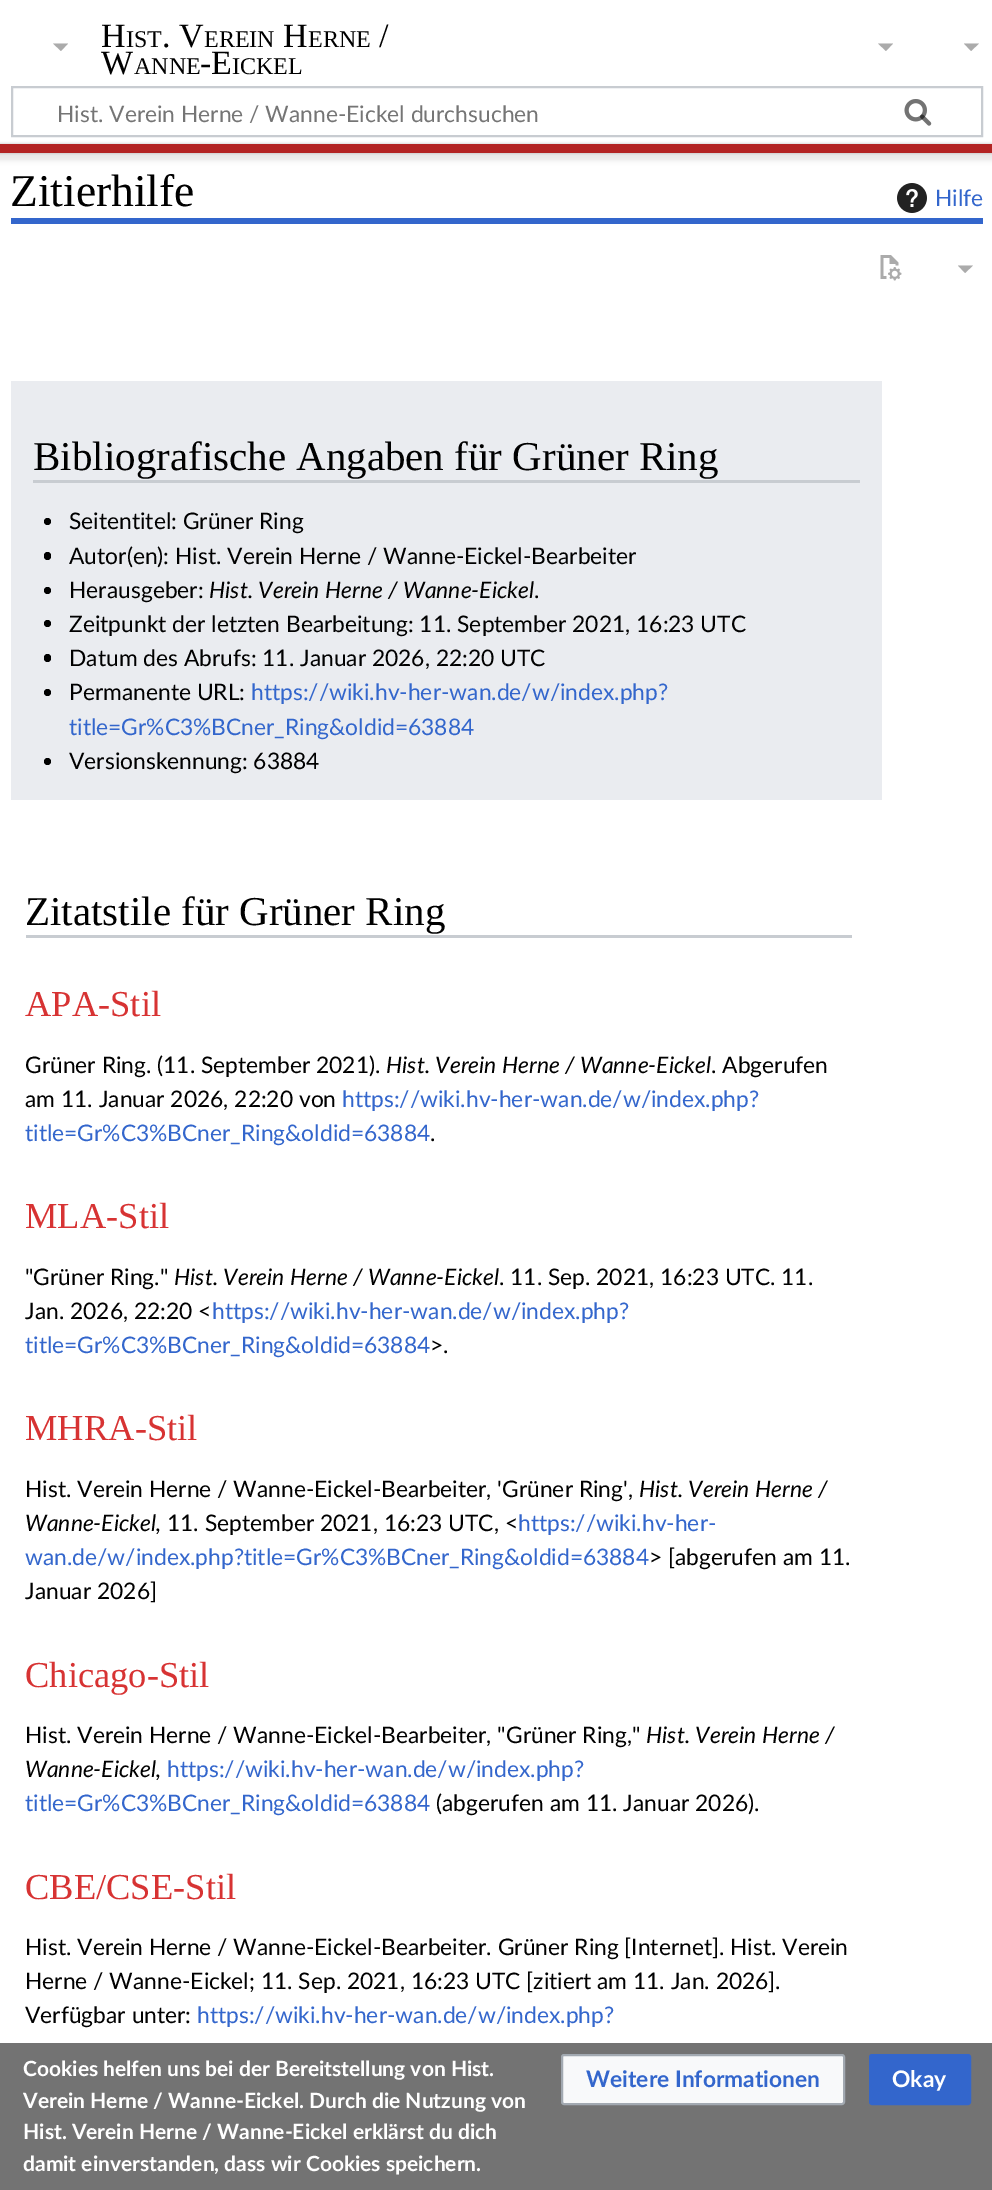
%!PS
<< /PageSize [992 2190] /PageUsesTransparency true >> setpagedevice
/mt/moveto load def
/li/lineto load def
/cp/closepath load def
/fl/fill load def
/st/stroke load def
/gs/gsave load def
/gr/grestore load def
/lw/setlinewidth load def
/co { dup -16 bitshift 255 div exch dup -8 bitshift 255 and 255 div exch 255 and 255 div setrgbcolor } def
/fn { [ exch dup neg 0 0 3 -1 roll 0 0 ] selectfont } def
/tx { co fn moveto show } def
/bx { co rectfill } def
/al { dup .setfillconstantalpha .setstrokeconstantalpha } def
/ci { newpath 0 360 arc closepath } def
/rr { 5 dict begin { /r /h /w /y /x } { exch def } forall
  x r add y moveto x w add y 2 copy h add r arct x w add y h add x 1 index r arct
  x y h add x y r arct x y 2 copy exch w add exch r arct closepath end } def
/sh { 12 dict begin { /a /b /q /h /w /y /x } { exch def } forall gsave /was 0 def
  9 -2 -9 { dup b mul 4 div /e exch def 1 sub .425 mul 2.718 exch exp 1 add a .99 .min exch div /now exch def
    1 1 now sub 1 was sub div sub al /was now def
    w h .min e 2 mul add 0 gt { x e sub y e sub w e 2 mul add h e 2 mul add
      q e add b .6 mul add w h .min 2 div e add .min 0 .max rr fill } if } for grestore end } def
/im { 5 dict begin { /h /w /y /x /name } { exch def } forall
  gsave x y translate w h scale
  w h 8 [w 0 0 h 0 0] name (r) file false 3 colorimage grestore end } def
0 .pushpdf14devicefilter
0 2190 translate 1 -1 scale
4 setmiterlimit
0 0 992 2190 16#FFFFFF bx
16#ABABAB co
979 43.5 mt 971 51 li 964 43.5 li cp fl
16#C8CCD1 co
2 lw
12 87 970 49 rectstroke
(media/1.raw) 904 99 28 27 im
(media/2.raw) 904 99 28 27 im
16#000000 co
0 144 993 9 0 1.5 .2 sh
-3 146 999 15 0 2 .07 sh
0 144 992 9 16#B32424 bx
16#ABABAB co
68 43.5 mt 61 51 li 53 43.5 li cp fl
893 43.5 mt 886 51 li 878 43.5 li cp fl
11 218 972 6 16#3366CC bx
(media/3.raw) 897 183 30 30 im
(media/4.raw) 880 255 22 26 im
16#ABABAB co
973 265.5 mt 965 273 li 958 265.5 li cp fl
11 381 871 419 16#EAECF0 bx
33 480 827 3 16#C8CCD1 bx
16#000000 co
47.5 521.5 3.5 ci fl
44 552 7 8 3.5 rr fl
47.5 590.5 3.5 ci fl
47.5 623.5 3.5 ci fl
44 654 7 8 3.5 rr fl
47.5 692.5 3.5 ci fl
47.5 761.5 3.5 ci fl
26 935 826 3 16#C8CCD1 bx
0.85 al
0 2043 992 147 16#5A5A5A bx
1 al
16#F8F9FA co
562 2055 282 49 2 rr gs fl gr
16#A2A9B1 co
st
16#3366CC co
870 2055 100 49 2 rr gs fl gr
st
(H) 101 47 /LiberationSerif-Regular 34 16#000000 tx
(IST) 126 47 /LiberationSerif-Regular 24 16#000000 tx
(. V) 162 47 /LiberationSerif-Regular 34 16#000000 tx
(EREIN) 204 47 /LiberationSerif-Regular 24 16#000000 tx
(H) 283 47 /LiberationSerif-Regular 34 16#000000 tx
(ERNE) 308 47 /LiberationSerif-Regular 24 16#000000 tx
(/) 379 47 /LiberationSerif-Regular 34 16#000000 tx
(W) 101 74 /LiberationSerif-Regular 34 16#000000 tx
(ANNE) 134 74 /LiberationSerif-Regular 24 16#000000 tx
(-E) 200 74 /LiberationSerif-Regular 34 16#000000 tx
(ICKEL) 232 74 /LiberationSerif-Regular 24 16#000000 tx
(Hist. Verein Herne / Wanne-Eickel durchsuchen) 57 122 /Lato-Regular 22.8 16#757575 tx
(Zitierhilfe) 10 206 /LiberationSerif-Regular 45.5 16#000000 tx
(Hilfe) 935 206 /Lato-Regular 22.8 16#3366CC tx
(Bibliografische Angaben für Grüner Ring) 33 470 /LiberationSerif-Regular 41 16#000000 tx
(Seitentitel: Grüner Ring) 69 529 /Lato-Regular 22.8 16#000000 tx
(Autor\(en\): Hist. Verein Herne / Wanne-Eickel-Bearbeiter) 69 564 /Lato-Regular 22.8 16#000000 tx
(Herausgeber:) 69 598 /Lato-Regular 22.8 16#000000 tx
(Hist. Verein Herne / Wanne-Eickel) 209 598 /Lato-Italic 22.8 16#000000 tx
(.) 534 598 /Lato-Regular 22.8 16#000000 tx
(Zeitpunkt der letzten Bearbeitung: 11. September 2021, 16:23 UTC) 69 632 /Lato-Regular 22.8 16#000000 tx
(Datum des Abrufs: 11. Januar 2026, 22:20 UTC) 69 666 /Lato-Regular 22.8 16#000000 tx
(Permanente URL:) 69 700 /Lato-Regular 22.8 16#000000 tx
(https://wiki.hv-her-wan.de/w/index.php?) 251 700 /Lato-Regular 22.8 16#3366CC tx
(title=Gr%C3%BCner_Ring&oldid=63884) 69 735 /Lato-Regular 22.8 16#3366CC tx
(Versionskennung: 63884) 69 769 /Lato-Regular 22.8 16#000000 tx
(Zitatstile für Grüner Ring) 25 925 /LiberationSerif-Regular 41 16#000000 tx
(APA-Stil) 25 1016 /LiberationSerif-Regular 36.5 16#D73333 tx
(Grüner Ring. \(11. September 2021\).) 25 1073 /Lato-Regular 22.8 16#000000 tx
(Hist. Verein Herne / Wanne-Eickel) 386 1073 /Lato-Italic 22.8 16#000000 tx
(. Abgerufen) 711 1073 /Lato-Regular 22.8 16#000000 tx
(am 11. Januar 2026, 22:20 von) 25 1107 /Lato-Regular 22.8 16#000000 tx
(https://wiki.hv-her-wan.de/w/index.php?) 342 1107 /Lato-Regular 22.8 16#3366CC tx
(title=Gr%C3%BCner_Ring&oldid=63884) 25 1141 /Lato-Regular 22.8 16#3366CC tx
(.) 430 1141 /Lato-Regular 22.8 16#000000 tx
(MLA-Stil) 25 1228 /LiberationSerif-Regular 36.5 16#D73333 tx
("Grüner Ring.") 25 1285 /Lato-Regular 22.8 16#000000 tx
(Hist. Verein Herne / Wanne-Eickel) 174 1285 /Lato-Italic 22.8 16#000000 tx
(. 11. Sep. 2021, 16:23 UTC. 11.) 499 1285 /Lato-Regular 22.8 16#000000 tx
(Jan. 2026, 22:20 <) 25 1319 /Lato-Regular 22.8 16#000000 tx
(https://wiki.hv-her-wan.de/w/index.php?) 212 1319 /Lato-Regular 22.8 16#3366CC tx
(title=Gr%C3%BCner_Ring&oldid=63884) 25 1353 /Lato-Regular 22.8 16#3366CC tx
(>.) 430 1353 /Lato-Regular 22.8 16#000000 tx
(MHRA-Stil) 25 1440 /LiberationSerif-Regular 36.5 16#D73333 tx
(Hist. Verein Herne / Wanne-Eickel-Bearbeiter, 'Grüner Ring',) 25 1497 /Lato-Regular 22.8 16#000000 tx
(Hist. Verein Herne /) 639 1497 /Lato-Italic 22.8 16#000000 tx
(Wanne-Eickel,) 25 1531 /Lato-Italic 22.8 16#000000 tx
(11. September 2021, 16:23 UTC, <) 167 1531 /Lato-Regular 22.8 16#000000 tx
(https://wiki.hv-her-) 518 1531 /Lato-Regular 22.8 16#3366CC tx
(wan.de/w/index.php?title=Gr%C3%BCner_Ring&oldid=63884) 25 1565 /Lato-Regular 22.8 16#3366CC tx
(> [abgerufen am 11.) 649 1565 /Lato-Regular 22.8 16#000000 tx
(Januar 2026]) 25 1599 /Lato-Regular 22.8 16#000000 tx
(Chicago-Stil) 25 1687 /LiberationSerif-Regular 36.5 16#D73333 tx
(Hist. Verein Herne / Wanne-Eickel-Bearbeiter, "Grüner Ring,") 25 1743 /Lato-Regular 22.8 16#000000 tx
(Hist. Verein Herne /) 646 1743 /Lato-Italic 22.8 16#000000 tx
(Wanne-Eickel,) 25 1777 /Lato-Italic 22.8 16#000000 tx
(https://wiki.hv-her-wan.de/w/index.php?) 167 1777 /Lato-Regular 22.8 16#3366CC tx
(title=Gr%C3%BCner_Ring&oldid=63884) 25 1811 /Lato-Regular 22.8 16#3366CC tx
(\(abgerufen am 11. Januar 2026\).) 436 1811 /Lato-Regular 22.8 16#000000 tx
(CBE/CSE-Stil) 25 1899 /LiberationSerif-Regular 36.5 16#D73333 tx
(Hist. Verein Herne / Wanne-Eickel-Bearbeiter. Grüner Ring [Internet]. Hist. Verein) 25 1955 /Lato-Regular 22.8 16#000000 tx
(Herne / Wanne-Eickel; 11. Sep. 2021, 16:23 UTC [zitiert am 11. Jan. 2026].) 25 1989 /Lato-Regular 22.8 16#000000 tx
(Verfügbar unter:) 25 2023 /Lato-Regular 22.8 16#000000 tx
(https://wiki.hv-her-wan.de/w/index.php?) 197 2023 /Lato-Regular 22.8 16#3366CC tx
(Cookies helfen uns bei der Bereitstellung von Hist.) 23 2076 /Lato-Bold 21 16#FFFFFF tx
(Verein Herne / Wanne-Eickel. Durch die Nutzung von) 23 2108 /Lato-Bold 21 16#FFFFFF tx
(Hist. Verein Herne / Wanne-Eickel erklärst du dich) 23 2139 /Lato-Bold 21 16#FFFFFF tx
(damit einverstanden, dass wir Cookies speichern.) 23 2171 /Lato-Bold 21 16#FFFFFF tx
(Weitere Informationen) 586 2087 /Lato-Bold 22.8 16#3366CC tx
(Okay) 892 2087 /Lato-Bold 22.8 16#FFFFFF tx
.poppdf14devicefilter showpage
